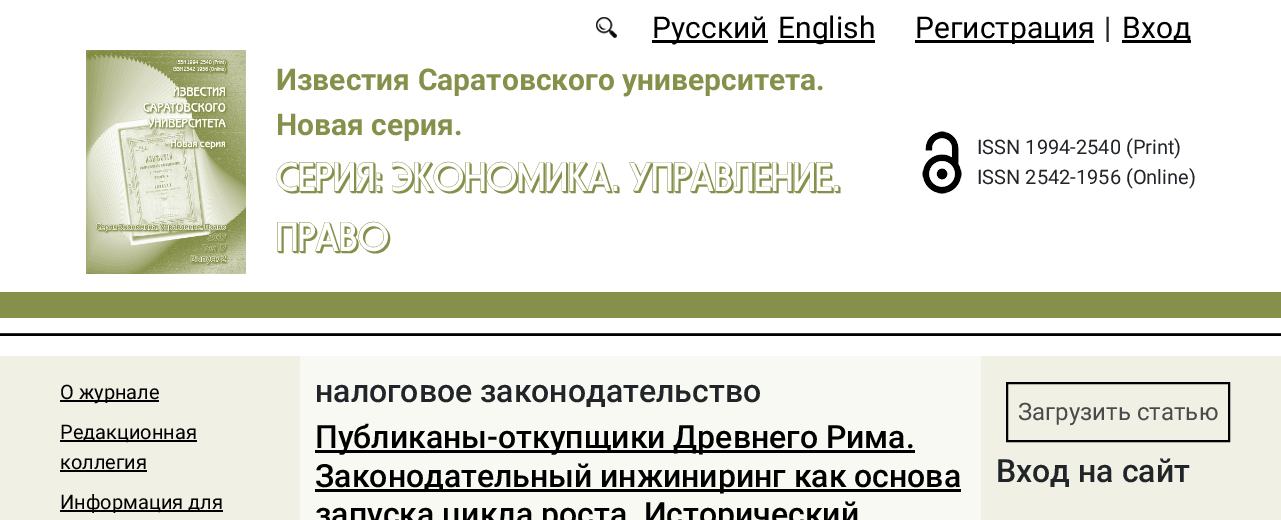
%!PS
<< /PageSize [1281 520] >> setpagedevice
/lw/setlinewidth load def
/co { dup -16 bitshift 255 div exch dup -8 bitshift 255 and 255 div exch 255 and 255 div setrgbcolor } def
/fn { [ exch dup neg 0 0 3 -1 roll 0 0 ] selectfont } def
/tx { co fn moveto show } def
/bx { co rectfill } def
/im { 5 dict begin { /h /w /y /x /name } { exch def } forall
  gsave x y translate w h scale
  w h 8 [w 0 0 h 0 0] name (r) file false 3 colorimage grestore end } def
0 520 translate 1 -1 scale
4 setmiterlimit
0 0 1281 520 16#FFFFFF bx
(media/1.raw) 596 17 21 21 im
652 40 116 3 16#000000 bx
778 40 97 3 16#000000 bx
915 40 179 3 16#000000 bx
1122 40 69 3 16#000000 bx
(media/2.raw) 86 50 160 224 im
(media/3.raw) 922 131 40 63 im
0 292 1281 26 16#86904A bx
0 333 1281 1 16#333333 bx
0 334 1281 2 16#000000 bx
0 356 300 164 16#F0F1E4 bx
60 400 99 2 16#000000 bx
60 440 137 2 16#000000 bx
60 470 87 2 16#000000 bx
60 510 163 2 16#000000 bx
300 356 681 164 16#F8F9F2 bx
315 450 600 3 16#000000 bx
315 489 646 3 16#000000 bx
981 356 300 164 16#F0F1E4 bx
16#000000 co
2 lw
1007 383 222 58 rectstroke
(Русский) 652 38 /Roboto-Regular 30 16#000000 tx
(English) 778 38 /Roboto-Regular 30 16#000000 tx
(Регистрация) 915 38 /Roboto-Regular 30 16#000000 tx
(|) 1104 38 /Roboto-Regular 30 16#212529 tx
(Вход) 1122 38 /Roboto-Regular 30 16#000000 tx
(Известия Саратовского университета.) 276 90 /Roboto-Bold 30 16#86904A tx
(Новая серия.) 276 135 /Roboto-Bold 30 16#86904A tx
(СЕРИЯ: ЭКОНОМИКА. УПРАВЛЕНИЕ.) 276 191 /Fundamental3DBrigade-Regular 40 16#86904A tx
(ПРАВО) 276 251 /Fundamental3DBrigade-Regular 40 16#86904A tx
(ISSN 1994-2540 \(Print\)) 977 154 /Roboto-Regular 20 16#212529 tx
(ISSN 2542-1956 \(Online\)) 977 184 /Roboto-Regular 20 16#212529 tx
(О журнале) 60 399 /Roboto-Regular 20 16#000000 tx
(Редакционная) 60 439 /Roboto-Regular 20 16#000000 tx
(коллегия) 60 469 /Roboto-Regular 20 16#000000 tx
(Информация для) 60 509 /Roboto-Regular 20 16#000000 tx
(налоговое законодательство) 315 402 /Roboto-Medium 32 16#212529 tx
(Публиканы-откупщики Древнего Рима.) 315 448 /Roboto-Medium 32 16#000000 tx
(Законодательный инжиниринг как основа) 315 487 /Roboto-Medium 32 16#000000 tx
(запуска цикла роста. Исторический) 315 525 /Roboto-Medium 32 16#000000 tx
(Загрузить статью) 1018 420 /Roboto-Regular 24 16#4A4A4A tx
(Вход на сайт) 996 482 /Roboto-Medium 32 16#212529 tx
showpage
